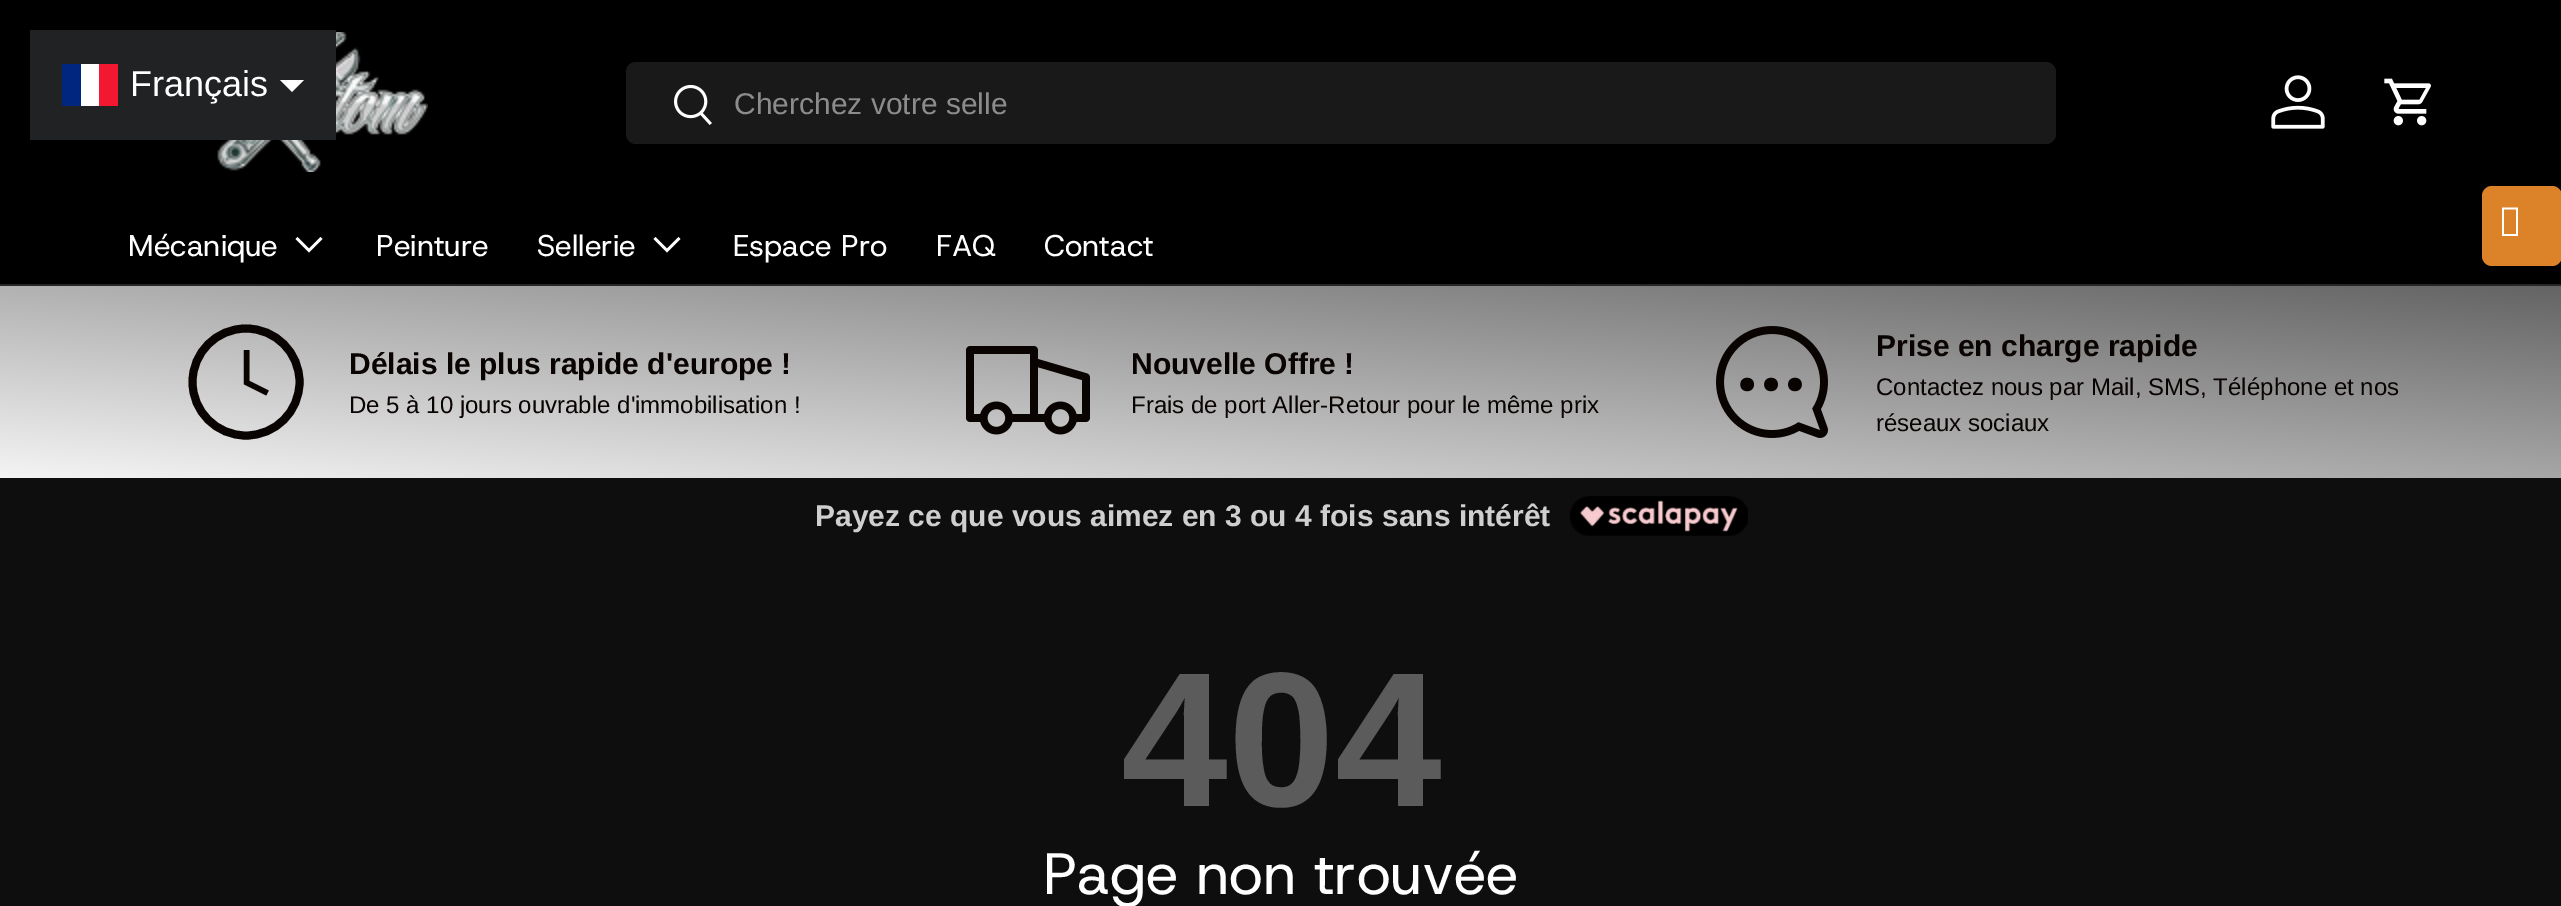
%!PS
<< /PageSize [2561 906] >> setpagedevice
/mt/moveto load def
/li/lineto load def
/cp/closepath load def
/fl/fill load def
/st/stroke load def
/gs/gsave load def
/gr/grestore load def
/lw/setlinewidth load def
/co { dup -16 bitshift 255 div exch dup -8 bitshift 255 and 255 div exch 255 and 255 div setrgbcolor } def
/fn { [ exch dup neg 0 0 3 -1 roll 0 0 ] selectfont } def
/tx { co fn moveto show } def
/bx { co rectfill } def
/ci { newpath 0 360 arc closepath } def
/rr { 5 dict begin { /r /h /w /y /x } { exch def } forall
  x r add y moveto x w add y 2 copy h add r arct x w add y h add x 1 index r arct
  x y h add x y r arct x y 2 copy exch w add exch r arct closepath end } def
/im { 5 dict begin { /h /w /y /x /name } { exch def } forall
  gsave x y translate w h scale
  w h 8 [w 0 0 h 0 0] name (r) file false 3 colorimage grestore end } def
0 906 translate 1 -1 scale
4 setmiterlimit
0 0 2561 906 16#0E0E0E bx
0 0 2561 284 16#000000 bx
(media/1.raw) 217 32 211 140 im
30 30 306 110 16#202223 bx
81 64 18 42 16#FFFFFF bx
62 64 19 42 16#00267F bx
99 64 19 42 16#F31830 bx
16#FFFFFF co
280 80 mt 304 80 li 292 92 li cp fl
0 284 2561 2 16#262626 bx
16#191919 co
626 62 1430 82 10 rr fl
(media/2.raw) 674 84 38 41 im
(media/3.raw) 2271 75 54 54 im
(media/4.raw) 2384 78 47 48 im
16#FFFFFF co
2.5 lw
321.5 238 mt 309 250.5 li 296.5 238 li st
679.5 238 mt 667 250.5 li 654.5 238 li st
16#DC8229 co
2482 186 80 80 10 rr fl
16#FFFFFF co
2502 236 mt 2502 207.5 li 2518 207.5 li 2518 236 li cp 2504 234 mt 2516 234 li 2516 209.5 li 2504 209.5 li cp fl
gs 0 286 mt 2561 286 li 2561 478 li 0 478 li cp clip newpath
<< /ShadingType 2 /ColorSpace /DeviceRGB /Coords [1299 176 1263 588] /Extend [true true] /Function << /FunctionType 2 /Domain [0 1] /C0 [.392 .392 .392] /C1 [.957 .957 .957] /N 1 >> >> shfill gr
16#090302 co
8 lw
246 382 53.5 ci st
5.4 lw
246.5 350 mt 246.5 382.5 li 267.5 393 li st
(media/5.raw) 966 346 124 89 im
(media/6.raw) 1716 326 112 112 im
(media/7.raw) 1570 496 178 40 im
(Français) 130 96 /LiberationSans-Regular 36 16#FFFFFF tx
(Cherchez votre selle) 734 114 /LiberationSans-Regular 30 16#8C8C8C tx
(Mécanique) 128 256 /HostGrotesk-Regular 30 16#FFFFFF tx
(Peinture) 376 256 /HostGrotesk-Regular 30 16#FFFFFF tx
(Sellerie) 537 256 /HostGrotesk-Regular 30 16#FFFFFF tx
(Espace Pro) 733 256 /HostGrotesk-Regular 30 16#FFFFFF tx
(FAQ) 936 256 /HostGrotesk-Regular 30 16#FFFFFF tx
(Contact) 1044 256 /HostGrotesk-Regular 30 16#FFFFFF tx
(Délais le plus rapide d'europe !) 349 374 /LiberationSans-Bold 30 16#090302 tx
(De 5 à 10 jours ouvrable d'immobilisation !) 349 413 /LiberationSans-Regular 24 16#090302 tx
(Nouvelle Offre !) 1131 374 /LiberationSans-Bold 30 16#090302 tx
(Frais de port Aller-Retour pour le même prix) 1131 413 /LiberationSans-Regular 24 16#090302 tx
(Prise en charge rapide) 1876 356 /LiberationSans-Bold 30 16#090302 tx
(Contactez nous par Mail, SMS, Téléphone et nos) 1876 395 /LiberationSans-Regular 24 16#090302 tx
(réseaux sociaux) 1876 431 /LiberationSans-Regular 24 16#090302 tx
(Payez ce que vous aimez en 3 ou 4 fois sans intérêt) 815 526 /LiberationSans-Bold 30 16#CFCFCF tx
(404) 1121 806 /LiberationSans-Bold 192 16#5B5B5B tx
(Page non trouvée) 1043 894 /HostGrotesk-Regular 58.25 16#FFFFFF tx
showpage
